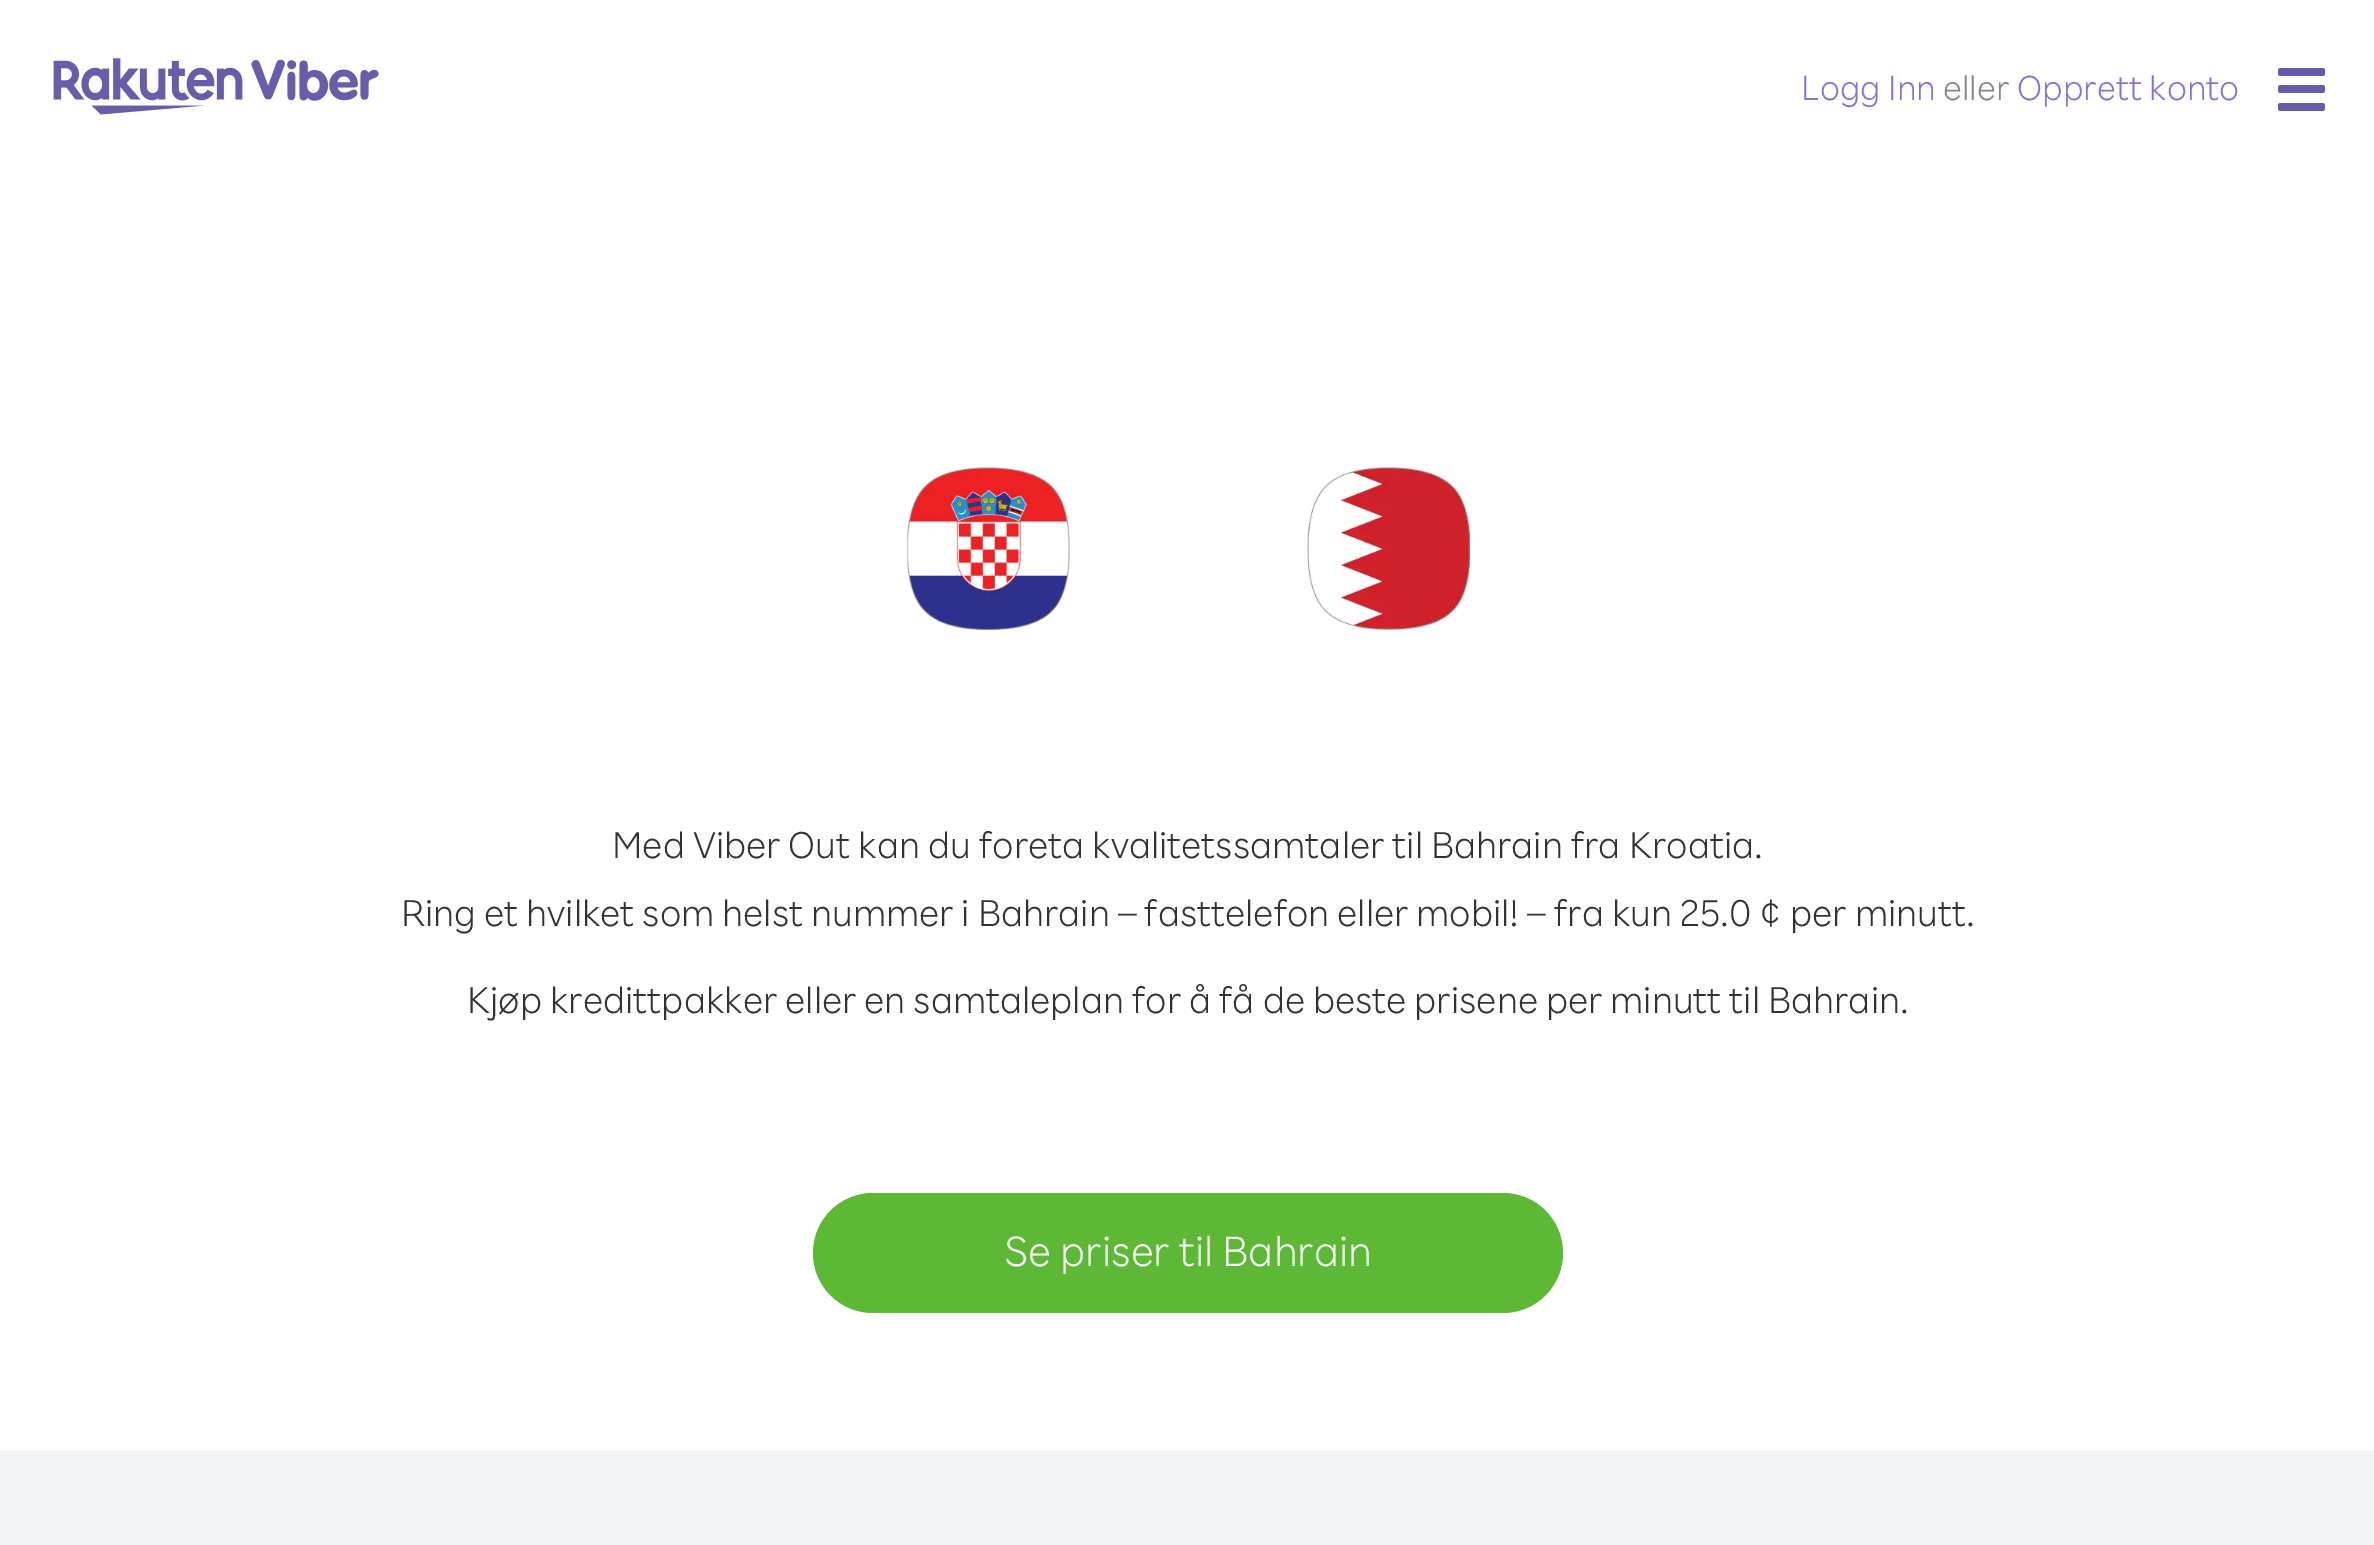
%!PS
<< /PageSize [2374 1545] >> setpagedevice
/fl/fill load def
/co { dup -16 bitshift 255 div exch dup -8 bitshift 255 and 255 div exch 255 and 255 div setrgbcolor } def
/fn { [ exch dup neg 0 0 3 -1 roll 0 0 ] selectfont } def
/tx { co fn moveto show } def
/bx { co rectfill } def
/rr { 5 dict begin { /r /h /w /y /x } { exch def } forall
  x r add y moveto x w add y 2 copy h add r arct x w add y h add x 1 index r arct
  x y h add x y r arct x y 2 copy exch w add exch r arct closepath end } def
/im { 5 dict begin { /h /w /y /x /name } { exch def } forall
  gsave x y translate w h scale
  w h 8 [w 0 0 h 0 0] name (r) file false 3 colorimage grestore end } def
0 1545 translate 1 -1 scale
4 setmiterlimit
0 0 2374 1545 16#FFFFFF bx
(media/1.raw) 53 58 326 57 im
16#665CAC co
2278 68 47 8 2.5 rr fl
2278 85 47 8 2.5 rr fl
2278 103 47 8 2.5 rr fl
(media/2.raw) 907 467 163 163 im
(media/3.raw) 1307 467 163 163 im
16#5DB835 co
813 1193 750 120 60 rr fl
0 1450 2374 95 16#F1F3F6 bx
(Logg Inn) 1801 100 /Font-Light 35 16#8074D6 tx
(eller) 1943 100 /Font-Light 35 16#868686 tx
(Opprett konto) 2017 100 /Font-Light 35 16#8074D6 tx
(Med Viber Out kan du foreta kvalitetssamtaler til Bahrain fra Kroatia.) 612 858 /Font-Light 37.5 16#323232 tx
(Ring et hvilket som helst nummer i Bahrain – fasttelefon eller mobil! – fra kun 25.0 ¢ per minutt.) 401 926 /Font-Light 37.5 16#323232 tx
(Kjøp kredittpakker eller en samtaleplan for å få de beste prisene per minutt til Bahrain.) 467 1013 /Font-Light 37.5 16#323232 tx
(Se priser til Bahrain) 1004 1266 /Font-Light 42.5 16#FFFFFF tx
showpage
